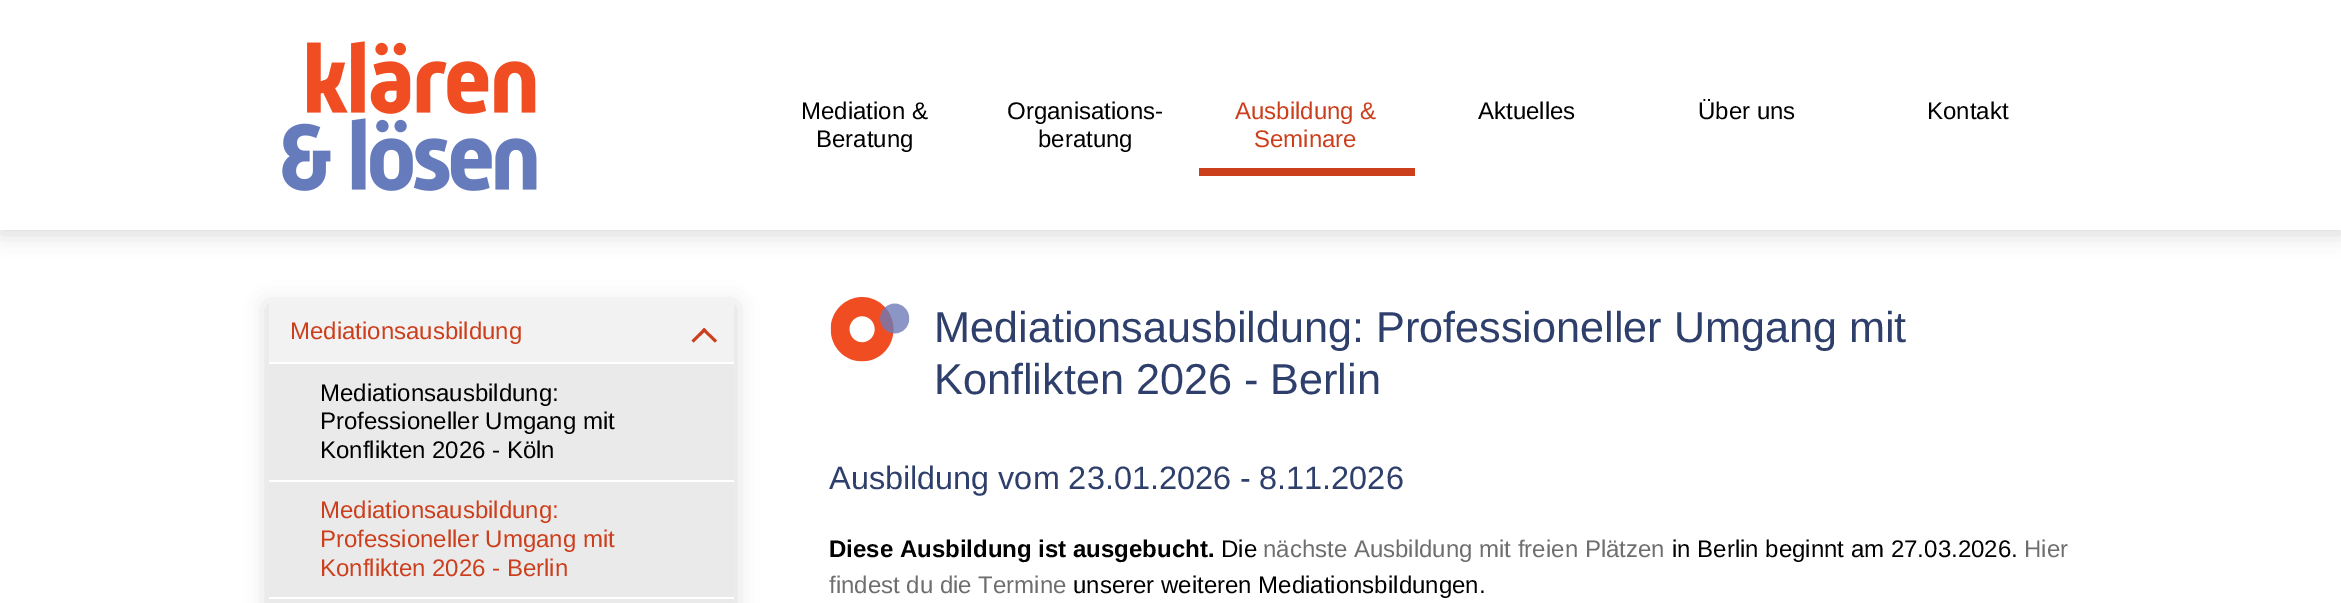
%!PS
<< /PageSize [2341 603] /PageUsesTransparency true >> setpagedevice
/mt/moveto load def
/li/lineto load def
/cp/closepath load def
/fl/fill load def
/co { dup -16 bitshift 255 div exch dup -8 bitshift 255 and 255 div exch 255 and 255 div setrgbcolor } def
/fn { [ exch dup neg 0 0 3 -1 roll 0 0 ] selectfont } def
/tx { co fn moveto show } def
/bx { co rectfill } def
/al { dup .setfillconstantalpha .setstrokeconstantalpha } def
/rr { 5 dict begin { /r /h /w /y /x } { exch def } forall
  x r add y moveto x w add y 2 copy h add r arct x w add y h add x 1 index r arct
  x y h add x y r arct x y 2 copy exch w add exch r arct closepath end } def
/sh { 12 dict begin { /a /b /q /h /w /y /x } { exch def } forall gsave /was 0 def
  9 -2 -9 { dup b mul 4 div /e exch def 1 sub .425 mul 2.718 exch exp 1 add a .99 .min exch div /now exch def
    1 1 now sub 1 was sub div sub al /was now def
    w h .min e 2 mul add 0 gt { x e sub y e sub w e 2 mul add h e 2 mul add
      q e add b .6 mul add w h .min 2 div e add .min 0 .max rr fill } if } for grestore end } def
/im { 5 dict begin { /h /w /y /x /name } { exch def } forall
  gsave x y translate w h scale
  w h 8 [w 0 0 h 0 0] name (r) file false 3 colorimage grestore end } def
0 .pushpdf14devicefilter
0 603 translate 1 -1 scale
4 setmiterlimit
0 0 2341 603 16#FFFFFF bx
16#010101 co
0 5 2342 229 0 11 .15 sh
0 0 2341 230 16#FFFFFF bx
(media/1.raw) 282 41 255 150 im
1199 168 216 8 16#CC3F1C bx
16#010101 co
267 305 468 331 0 11 .15 sh
269 302 465 60 16#F2F2F2 bx
16#CC3F1C co
706.5 330 mt 693.5 342.5 li 691.5 340.5 li 704 328 li cp fl
717 340.5 mt 715 342.5 li 702 330 li 704 328 li cp fl
270 364 462 116 16#EAEAEA bx
269 362 465 2 16#FFFFFF bx
270 482 462 115 16#EAEAEA bx
269 480 465 2 16#FFFFFF bx
269 599 465 4 16#EAEAEA bx
269 597 465 2 16#FFFFFF bx
(media/2.raw) 830 297 80 65 im
(Ausbildung &) 1235 119 /Arimo-Regular 24 16#CC3F1C tx
(Seminare) 1254 147 /Arimo-Regular 24 16#CC3F1C tx
(Mediationsausbildung) 290 339 /Arimo-Regular 24 16#CC3F1C tx
(Mediationsausbildung:) 320 401 /Arimo-Regular 24 16#000000 tx
(Professioneller Umgang mit) 320 429 /Arimo-Regular 24 16#000000 tx
(Konflikten 2026 - Köln) 320 458 /Arimo-Regular 24 16#000000 tx
(Mediationsausbildung:) 320 518 /Arimo-Regular 24 16#CC3F1C tx
(Professioneller Umgang mit) 320 547 /Arimo-Regular 24 16#CC3F1C tx
(Konflikten 2026 - Berlin) 320 576 /Arimo-Regular 24 16#CC3F1C tx
(Über uns) 1698 119 /Arimo-Regular 24 16#000000 tx
(Mediation &) 801 119 /Arimo-Regular 24 16#000000 tx
(Beratung) 816 147 /Arimo-Regular 24 16#000000 tx
(Organisations-) 1007 119 /Arimo-Regular 24 16#000000 tx
(beratung) 1038 147 /Arimo-Regular 24 16#000000 tx
(Aktuelles) 1478 119 /Arimo-Regular 24 16#000000 tx
(Kontakt) 1927 119 /Arimo-Regular 24 16#000000 tx
(Mediationsausbildung: Professioneller Umgang mit) 934 342 /Arimo-Regular 43.2 16#2E3F6B tx
(Konflikten 2026 - Berlin) 934 394 /Arimo-Regular 43.2 16#2E3F6B tx
(Ausbildung vom 23.01.2026 - 8.11.2026) 829 489 /Arimo-Regular 32.4 16#2E3F6B tx
(Diese Ausbildung ist ausgebucht.) 829 557 /Arimo-Bold 24 16#000000 tx
(Die) 1221 557 /Arimo-Regular 24 16#000000 tx
(nächste Ausbildung mit freien Plätzen) 1263 557 /Arimo-Regular 24 16#6E6E6E tx
(in Berlin beginnt am 27.03.2026.) 1672 557 /Arimo-Regular 24 16#000000 tx
(Hier) 2024 557 /Arimo-Regular 24 16#6E6E6E tx
(findest du die Termine) 829 593 /Arimo-Regular 24 16#6E6E6E tx
(unserer weiteren Mediationsbildungen.) 1073 593 /Arimo-Regular 24 16#000000 tx
.poppdf14devicefilter showpage
